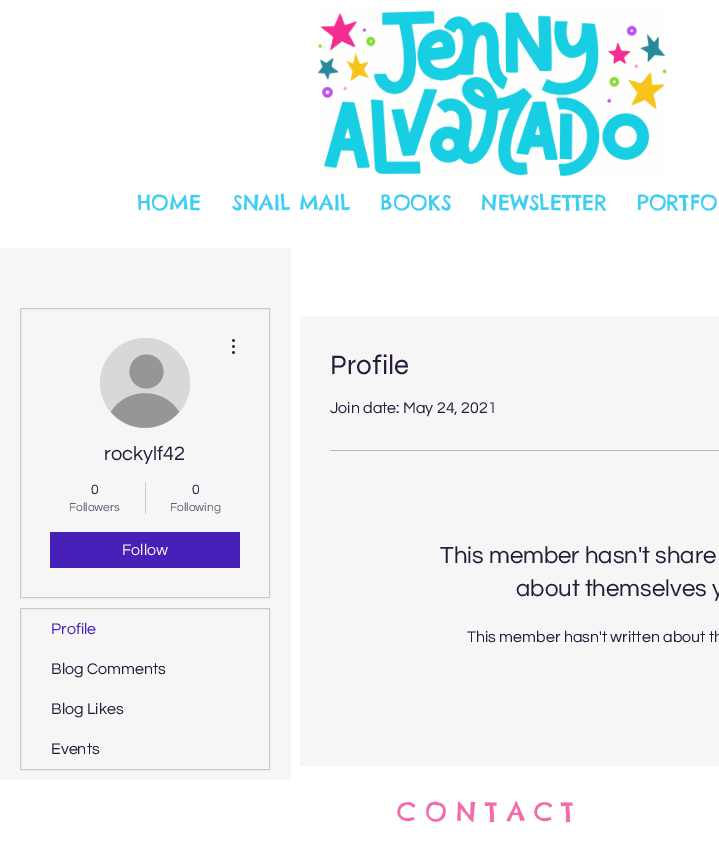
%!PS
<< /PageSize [719 842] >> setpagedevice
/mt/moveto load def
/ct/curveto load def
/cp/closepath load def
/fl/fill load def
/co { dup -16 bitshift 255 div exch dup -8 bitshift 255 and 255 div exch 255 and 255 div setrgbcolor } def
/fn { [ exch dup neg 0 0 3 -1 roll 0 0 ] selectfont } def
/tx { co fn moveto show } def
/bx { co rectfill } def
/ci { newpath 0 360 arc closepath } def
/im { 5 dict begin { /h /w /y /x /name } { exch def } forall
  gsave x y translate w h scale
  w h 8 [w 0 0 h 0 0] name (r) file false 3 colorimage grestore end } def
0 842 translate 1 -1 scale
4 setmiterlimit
0 0 719 842 16#FFFFFF bx
(media/1.raw) 317 10 350 167 im
0 248 291 532 16#F6F6F6 bx
16#CDCAD0 co
20.5 308.5 249 289 rectstroke
16#D8D8D8 co
145 383 45 ci fl
16#969696 co
146.5 371.5 17 ci fl
179 412 mt 161 433 129 433 111 412 ct 126 387 164 387 179 412 ct cp fl
(media/2.raw) 232 339 3 15 im
145 482 1 32 16#CDCAD0 bx
50 532 190 36 16#4720B7 bx
16#CDCAD0 co
20.5 608.5 249 161 rectstroke
300 316 419 450 16#F6F6F6 bx
330 450 389 1 16#B8B4BD bx
(HOME) 137 210 /ChelseaMarket-Regular 21 16#40CDF2 tx
(SNAIL MAIL) 232 210 /ChelseaMarket-Regular 21 16#40CDF2 tx
(BOOKS) 380 210 /ChelseaMarket-Regular 21 16#40CDF2 tx
(NEWSLETTER) 481 210 /ChelseaMarket-Regular 21 16#40CDF2 tx
(PORTFO) 637 210 /ChelseaMarket-Regular 21 16#40CDF2 tx
(rockylf42) 104 460 /Questrial-Regular 20 16#281A39 tx
(0) 91 494 /Questrial-Regular 14 16#281A39 tx
(Followers) 69 511 /Questrial-Regular 12 16#665C72 tx
(0) 192 494 /Questrial-Regular 14 16#281A39 tx
(Following) 170 511 /Questrial-Regular 12 16#665C72 tx
(Follow) 122 555 /Questrial-Regular 16 16#F6F6F6 tx
(Profile) 51 634 /Questrial-Regular 16 16#4720B7 tx
(Blog Comments) 51 674 /Questrial-Regular 16 16#281A39 tx
(Blog Likes) 51 714 /Questrial-Regular 16 16#281A39 tx
(Events) 51 754 /Questrial-Regular 16 16#281A39 tx
(Profile) 330 374 /Syne-Regular 28 16#281A39 tx
(Join date: May 24, 2021) 330 413 /Questrial-Regular 16 16#281A39 tx
(This member hasn't share) 440 563 /Questrial-Regular 24 16#281A39 tx
(about themselves y) 516 596 /Questrial-Regular 24 16#281A39 tx
(This member hasn't written about th) 467 642 /Questrial-Regular 16 16#281A39 tx
/ChelseaMarket-Regular 26 fn
16#F26BAC co
397 821 mt 9 0 (CONTACT) ashow
showpage
